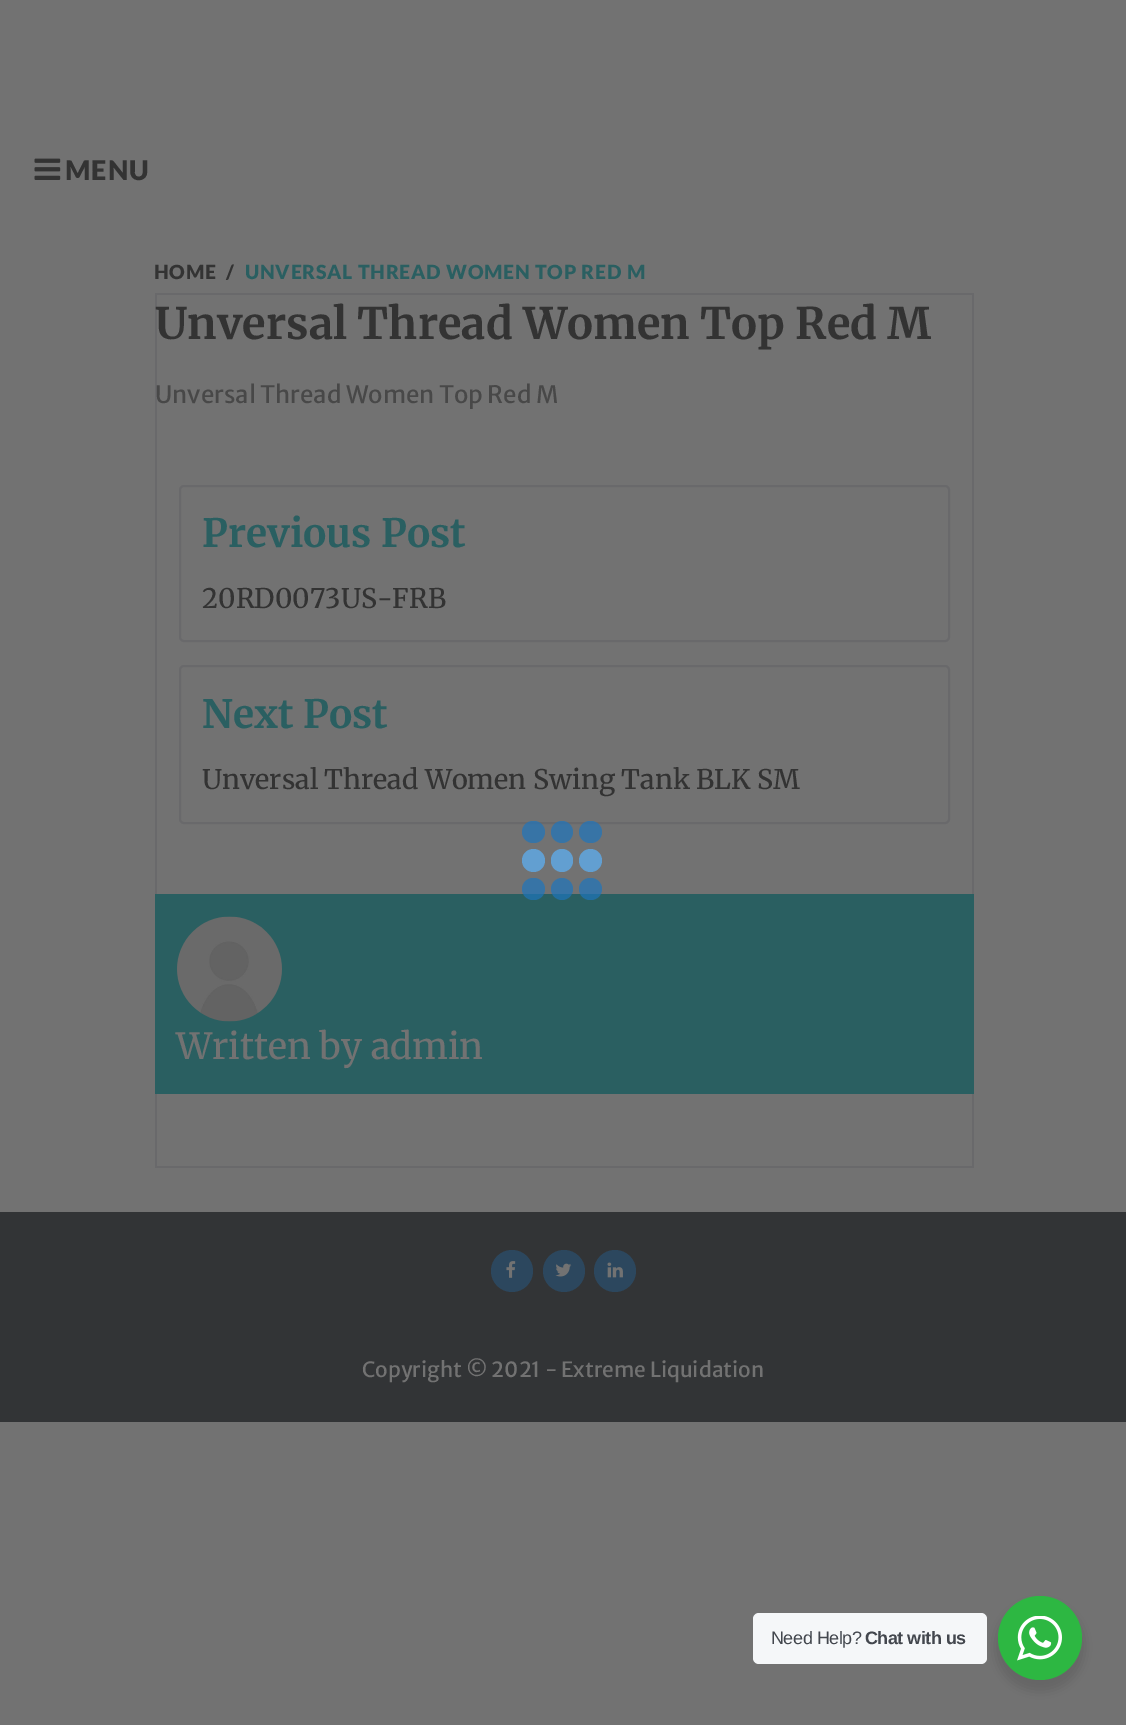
%!PS
<< /PageSize [1126 1725] /PageUsesTransparency true >> setpagedevice
/mt/moveto load def
/fl/fill load def
/st/stroke load def
/lw/setlinewidth load def
/co { dup -16 bitshift 255 div exch dup -8 bitshift 255 and 255 div exch 255 and 255 div setrgbcolor } def
/fn { [ exch dup neg 0 0 3 -1 roll 0 0 ] selectfont } def
/tx { co fn moveto show } def
/bx { co rectfill } def
/al { dup .setfillconstantalpha .setstrokeconstantalpha } def
/ci { newpath 0 360 arc closepath } def
/rr { 5 dict begin { /r /h /w /y /x } { exch def } forall
  x r add y moveto x w add y 2 copy h add r arct x w add y h add x 1 index r arct
  x y h add x y r arct x y 2 copy exch w add exch r arct closepath end } def
/sh { 12 dict begin { /a /b /q /h /w /y /x } { exch def } forall gsave /was 0 def
  9 -2 -9 { dup b mul 4 div /e exch def 1 sub .425 mul 2.718 exch exp 1 add a .99 .min exch div /now exch def
    1 1 now sub 1 was sub div sub al /was now def
    w h .min e 2 mul add 0 gt { x e sub y e sub w e 2 mul add h e 2 mul add
      q e add b .6 mul add w h .min 2 div e add .min 0 .max rr fill } if } for grestore end } def
/im { 5 dict begin { /h /w /y /x /name } { exch def } forall
  gsave x y translate w h scale
  w h 8 [w 0 0 h 0 0] name (r) file false 3 colorimage grestore end } def
0 .pushpdf14devicefilter
0 1725 translate 1 -1 scale
4 setmiterlimit
0 0 1126 1725 16#727272 bx
(media/1.raw) 34 158 27 22 im
972 293 2 874 16#69696B bx
155 1166 819 2 16#69696B bx
155 293 2 874 16#69696B bx
156 293 816 2 16#69696B bx
2 lw
180 486 769 155 4 rr st
180 666 769 157 4 rr st
155 894 819 200 16#2A5F61 bx
(media/2.raw) 177 916 105 106 im
0 1212 1126 210 16#323436 bx
16#2C475E co
512 1271 21 ci fl
(media/3.raw) 506 1261 10 17 im
564 1271 21 ci fl
(media/4.raw) 555 1263 17 14 im
615 1271 21 ci fl
(media/5.raw) 607 1262 16 16 im
0.69 al
16#1D75BD co
522 821 23 22 11 rr fl
562 832 11 ci fl
579 821 23 22 11 rr fl
1 al
16#629FD1 co
533.5 860.5 11.5 ci fl
551 849 22 23 11 rr fl
590.5 860.5 11.5 ci fl
0.69 al
16#1D75BD co
522 878 23 22 11 rr fl
562 889 11 ci fl
579 878 23 22 11 rr fl
1 al
16#000000 co
995 1602 90 90 45 6 .14 sh
16#F5F7F9 co
753 1613 234 51 6 rr fl
16#2DB742 co
1040 1638 42 ci fl
(media/6.raw) 1017 1616 45 45 im
/Lato-Black 27 fn
16#333333 co
65 180 mt 1 0 (MENU) ashow
/Lato-Black 19.5 fn
154 279 mt .75 0 (HOME) ashow
226 279 mt .75 0 (/) ashow
16#2A5F61 co
245 279 mt .75 0 (UNVERSAL THREAD WOMEN TOP RED M) ashow
(Unversal Thread Women Top Red M) 155 339 /Merriweather-Bold 43.5 16#333333 tx
(Unversal Thread Women Top Red M) 155 403 /MerriweatherSans-Regular 24 16#484848 tx
(Previous Post) 202 547 /Merriweather-Bold 39 16#2A5F61 tx
(20RD0073US-FRB) 202 608 /Merriweather-Medium 27 16#333333 tx
(Next Post) 202 728 /Merriweather-Bold 39 16#2A5F61 tx
(Unversal Thread Women Swing Tank BLK SM) 202 789 /Merriweather-Medium 27 16#333333 tx
(Written by admin) 176 1059 /Merriweather-Medium 36 16#727272 tx
(Copyright © 2021 - Extreme Liquidation) 362 1377 /MerriweatherSans-Regular 21 16#727272 tx
/LiberationSans-Regular 18 fn
16#43474E co
771 1644 mt -.5 0 (Need Help?) ashow
/LiberationSans-Bold 18 fn
865 1644 mt -.5 0 (Chat with us) ashow
.poppdf14devicefilter showpage
